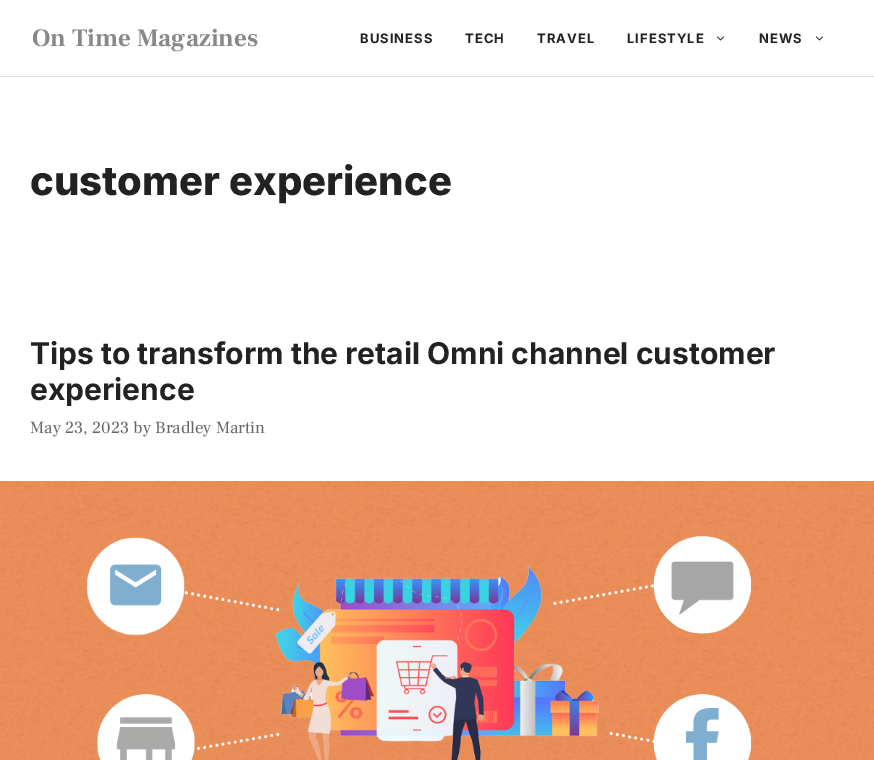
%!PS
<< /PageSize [874 760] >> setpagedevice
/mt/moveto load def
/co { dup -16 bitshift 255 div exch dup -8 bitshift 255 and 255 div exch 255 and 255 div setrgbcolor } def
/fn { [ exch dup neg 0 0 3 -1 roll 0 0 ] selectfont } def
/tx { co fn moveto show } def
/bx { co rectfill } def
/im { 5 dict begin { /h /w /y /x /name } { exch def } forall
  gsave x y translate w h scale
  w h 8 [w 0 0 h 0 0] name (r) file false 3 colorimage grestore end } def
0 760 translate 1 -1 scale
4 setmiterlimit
0 0 874 760 16#FFFFFF bx
0 76 874 1 16#DDDDDD bx
(media/1.raw) 717 36 7 5 im
(media/1.raw) 816 36 7 5 im
(media/2.raw) 0 481 874 279 im
(On Time Magazines) 32 46 /FrankRuhlLibre-Bold 25 16#888888 tx
/Inter-Bold 13 fn
16#222222 co
360 43 mt 1 0 (BUSINESS) ashow
465 43 mt 1 0 (TECH) ashow
537 43 mt 1 0 (TRAVEL) ashow
627 43 mt 1 0 (LIFESTYLE) ashow
759 43 mt 1 0 (NEWS) ashow
(customer experience) 30 195 /Inter-ExtraBold 40 16#222222 tx
(Tips to transform the retail Omni channel customer) 30 364 /Inter-Bold 30 16#222222 tx
(experience) 30 400 /Inter-Bold 30 16#222222 tx
(May 23, 2023 by Bradley Martin) 30 433 /FrankRuhlLibre-Regular 17 16#666666 tx
showpage
